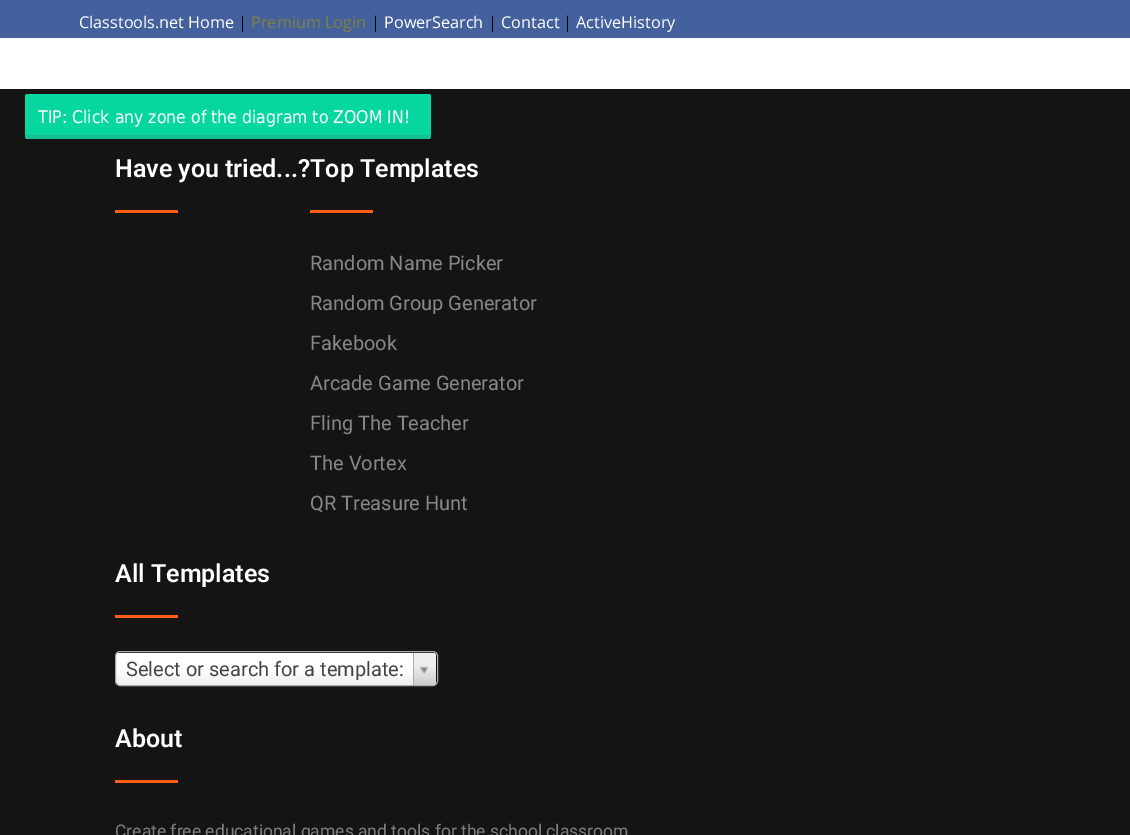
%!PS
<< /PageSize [1130 835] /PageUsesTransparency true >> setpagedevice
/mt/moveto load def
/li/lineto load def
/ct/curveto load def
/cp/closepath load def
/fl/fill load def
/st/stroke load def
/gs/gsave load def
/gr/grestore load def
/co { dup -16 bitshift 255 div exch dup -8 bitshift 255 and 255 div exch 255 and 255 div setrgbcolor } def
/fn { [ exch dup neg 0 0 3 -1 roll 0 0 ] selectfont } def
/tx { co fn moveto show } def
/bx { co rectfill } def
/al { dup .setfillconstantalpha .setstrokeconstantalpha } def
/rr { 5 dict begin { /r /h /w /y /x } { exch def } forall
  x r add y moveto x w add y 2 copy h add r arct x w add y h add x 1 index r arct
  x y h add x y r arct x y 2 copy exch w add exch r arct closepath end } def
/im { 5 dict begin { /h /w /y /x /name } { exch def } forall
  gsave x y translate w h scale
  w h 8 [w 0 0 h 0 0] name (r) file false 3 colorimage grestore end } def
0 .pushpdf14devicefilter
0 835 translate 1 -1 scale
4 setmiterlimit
0 0 1130 835 16#FFFFFF bx
0 0 1130 38 16#44619D bx
0 89 1130 746 16#151414 bx
16#06D6A0 co
25 94 406 45 2.5 rr fl
0.2 al
16#646464 co
25 135 mt 431 135 li 431 136.5 li 431 138 430 139 428.5 139 ct 27.5 139 li 26 139 25 138 25 136.5 ct cp fl
1 al
115 210 63 3 16#FF5E14 bx
310 210 63 3 16#FF5E14 bx
115 615 63 3 16#FF5E14 bx
gs 116 653 320 32 4 rr clip newpath
<< /ShadingType 2 /ColorSpace /DeviceRGB /Coords [276 685 276 653] /Extend [true true] /Function << /FunctionType 3 /Domain [0 1] /Functions [<< /FunctionType 2 /Domain [0 1] /C0 [.933 .933 .933] /C1 [1 1 1] /N 1 >> << /FunctionType 2 /Domain [0 1] /C0 [1 1 1] /C1 [1 1 1] /N 1 >>] /Bounds [.5] /Encode [0 1 0 1] >> >> shfill gr
16#AAAAAA co
115.5 651.5 322 34 4.5 rr st
gs
116 653 320 32 4 rr clip newpath
gs 413 653 mt 431 653 li 434 653 436 655 436 658 ct 436 680 li 436 683 434 685 431 685 ct 413 685 li cp clip newpath
<< /ShadingType 2 /ColorSpace /DeviceRGB /Coords [425 685 425 653] /Extend [true true] /Function << /FunctionType 3 /Domain [0 1] /Functions [<< /FunctionType 2 /Domain [0 1] /C0 [.8 .8 .8] /C1 [.933 .933 .933] /N 1 >> << /FunctionType 2 /Domain [0 1] /C0 [.933 .933 .933] /C1 [.933 .933 .933] /N 1 >>] /Bounds [.6] /Encode [0 1 0 1] >> >> shfill gr
gr
413 653 1 32 16#AAAAAA bx
(media/1.raw) 420 666 9 8 im
115 780 63 3 16#FF5E14 bx
(Classtools.net Home) 79 28 /OpenSans-Regular 16.25 16#FFFFFF tx
(|) 238 28 /OpenSans-Regular 16.25 16#000000 tx
(Premium Login) 251 28 /OpenSans-Regular 16.25 16#808040 tx
(|) 371 28 /OpenSans-Regular 16.25 16#000000 tx
(PowerSearch) 384 28 /OpenSans-Regular 16.25 16#FFFFFF tx
(|) 488 28 /OpenSans-Regular 16.25 16#000000 tx
(Contact) 501 28 /OpenSans-Regular 16.25 16#FFFFFF tx
(|) 563 28 /OpenSans-Regular 16.25 16#000000 tx
(ActiveHistory) 576 28 /OpenSans-Regular 16.25 16#FFFFFF tx
(TIP: Click any zone of the diagram to ZOOM IN!) 38 123 /DejaVuSans-Regular 17.5 16#FFFFFF tx
(Have you tried...?Top Templates) 115 177 /Roboto-SemiBold 25 16#FFFFFF tx
(Random Name Picker) 310 270 /Roboto-Regular 20 16#878787 tx
(Random Group Generator) 310 310 /Roboto-Regular 20 16#878787 tx
(Fakebook) 310 350 /Roboto-Regular 20 16#878787 tx
(Arcade Game Generator) 310 390 /Roboto-Regular 20 16#878787 tx
(Fling The Teacher) 310 430 /Roboto-Regular 20 16#878787 tx
(The Vortex) 310 470 /Roboto-Regular 20 16#878787 tx
(QR Treasure Hunt) 310 510 /Roboto-Regular 20 16#878787 tx
(All Templates) 115 582 /Roboto-SemiBold 25 16#FFFFFF tx
(Select or search for a template:) 126 676 /Roboto-Regular 20 16#444444 tx
(About) 115 747 /Roboto-SemiBold 25 16#FFFFFF tx
(Create free educational games and tools for the school classroom) 115 837 /Roboto-Regular 17.5 16#7E7E7E tx
.poppdf14devicefilter showpage
